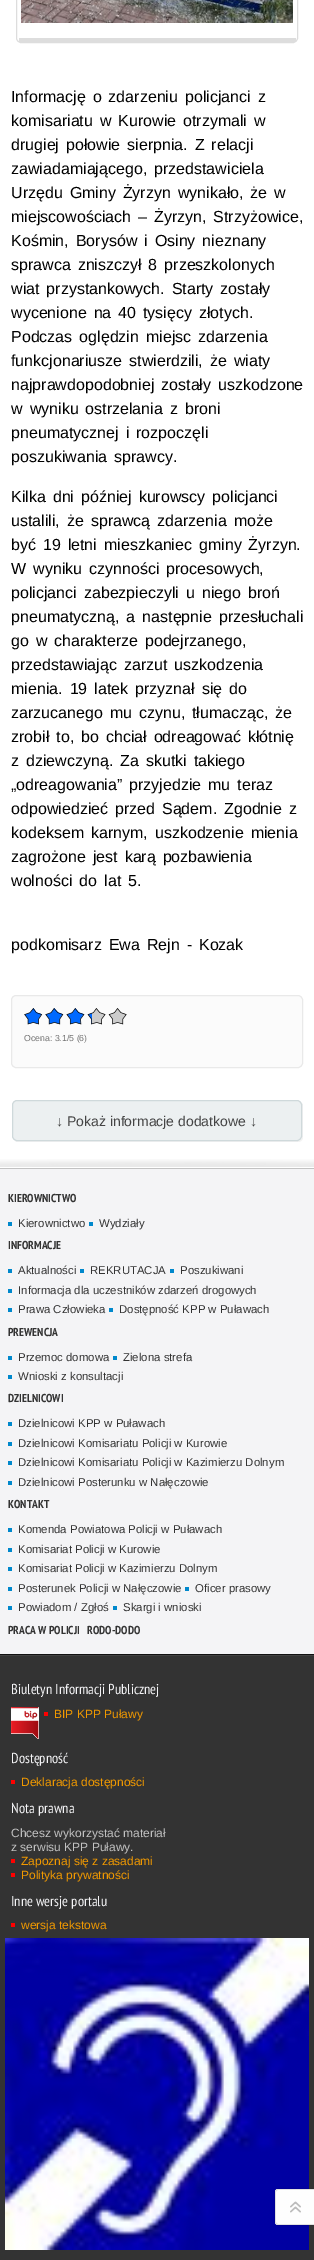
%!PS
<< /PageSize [314 2260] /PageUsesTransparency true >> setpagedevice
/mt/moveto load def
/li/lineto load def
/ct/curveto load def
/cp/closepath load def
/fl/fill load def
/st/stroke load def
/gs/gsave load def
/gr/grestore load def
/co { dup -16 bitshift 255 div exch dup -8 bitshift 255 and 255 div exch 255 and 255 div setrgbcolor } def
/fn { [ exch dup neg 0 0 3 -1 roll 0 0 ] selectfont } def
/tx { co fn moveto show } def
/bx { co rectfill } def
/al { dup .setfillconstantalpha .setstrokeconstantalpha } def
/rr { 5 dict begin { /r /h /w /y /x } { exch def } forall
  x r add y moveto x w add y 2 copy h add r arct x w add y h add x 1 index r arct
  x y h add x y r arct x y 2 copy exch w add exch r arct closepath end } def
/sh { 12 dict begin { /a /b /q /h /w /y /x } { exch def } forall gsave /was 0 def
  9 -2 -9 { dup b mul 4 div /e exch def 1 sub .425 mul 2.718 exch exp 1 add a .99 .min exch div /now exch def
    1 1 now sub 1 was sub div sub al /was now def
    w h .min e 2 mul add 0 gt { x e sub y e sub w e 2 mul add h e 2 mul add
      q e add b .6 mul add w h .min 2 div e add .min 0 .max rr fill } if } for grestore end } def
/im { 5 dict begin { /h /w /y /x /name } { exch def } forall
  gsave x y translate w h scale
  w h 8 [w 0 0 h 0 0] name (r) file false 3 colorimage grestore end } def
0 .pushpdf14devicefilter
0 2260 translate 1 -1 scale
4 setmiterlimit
0 0 314 2260 16#FFFFFF bx
16#DDDDDD co
16.5 -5.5 281 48 4.5 rr st
19 38 277 4 16#DDDDDD bx
(media/1.raw) 21 0 272 23 im
16#FBFBFB co
11.5 995.5 291 72 4.5 rr gs fl gr
16#E9E9E9 co
st
92 1008 35 16 16#CCCCCC bx
24 1008 68 16 16#0069FF bx
(media/2.raw) 24 1008 110 25 im
16#F2F2F2 co
14 1140 mt 15 1141 16 1142 18 1142 ct 298 1142 li 301 1142 303 1140 303 1137 ct 303 1106 li 303 1104 302 1103 301 1102 ct 302 1103 302 1104 302 1105 ct 302 1136 li 302 1139 300 1141 297 1141 ct 17 1141 li 16 1141 15 1141 14 1140 ct cp fl
16#ECF0F1 co
12.5 1100.5 289 40 4.5 rr gs fl gr
16#CFD9DB co
st
(media/3.raw) 0 1159 314 8 im
0 1169 314 485 16#F4F4F6 bx
0 1168 314 1 16#C2C2C2 bx
0 1654 314 1 16#111111 bx
8 1222 4 4 16#0088CC bx
89 1222 4 4 16#0088CC bx
8 1269 4 4 16#0088CC bx
80 1269 4 4 16#0088CC bx
170 1269 4 4 16#0088CC bx
8 1289 4 4 16#0088CC bx
8 1308 4 4 16#0088CC bx
109 1308 4 4 16#0088CC bx
8 1356 4 4 16#0088CC bx
113 1356 4 4 16#0088CC bx
8 1375 4 4 16#0088CC bx
8 1422 4 4 16#0088CC bx
8 1442 4 4 16#0088CC bx
8 1461 4 4 16#0088CC bx
8 1481 4 4 16#0088CC bx
8 1528 4 4 16#0088CC bx
8 1548 4 4 16#0088CC bx
8 1567 4 4 16#0088CC bx
8 1587 4 4 16#0088CC bx
185 1587 4 4 16#0088CC bx
8 1606 4 4 16#0088CC bx
113 1606 4 4 16#0088CC bx
0 1656 314 604 16#333333 bx
0 1655 314 1 16#424242 bx
(media/4.raw) 11 1707 28 32 im
44 1712 4 4 16#FF0000 bx
11 1780 4 4 16#FF0000 bx
11 1859 4 4 16#FF0000 bx
11 1873 4 4 16#FF0000 bx
11 1923 4 4 16#FF0000 bx
(media/5.raw) 5 1938 304 312 im
16#000000 co
275 2189 39 36 3 1 .25 sh
16#FEFEFE co
278 2189 mt 314 2189 li 314 2225 li 278 2225 li 276.5 2225 275 2223.5 275 2222 ct 275 2192 li 275 2190.5 276.5 2189 278 2189 ct cp fl
16#E1E1E1 co
278 2189 mt 314 2189 li 314 2225 li 278 2225 li 276.5 2225 275 2223.5 275 2222 ct 275 2192 li 275 2190.5 276.5 2189 278 2189 ct cp 278 2190 mt 314 2190 li 314 2224 li 278 2224 li 277 2224 276 2223 276 2222 ct 276 2192 li 276 2191 277 2190 278 2190 ct cp eofill
(media/6.raw) 290 2201 11 12 im
/LiberationSans-Regular 16 fn
16#000000 co
11 102 mt 2.5 0 32 (Informację o zdarzeniu policjanci z) widthshow
11 126 mt 2.5 0 32 (komisariatu w Kurowie otrzymali w) widthshow
11 150 mt 2.5 0 32 (drugiej połowie sierpnia. Z relacji) widthshow
11 174 mt 2.5 0 32 (zawiadamiającego, przedstawiciela) widthshow
11 198 mt 2.5 0 32 (Urzędu Gminy Żyrzyn wynikało, że w) widthshow
11 222 mt 2.5 0 32 (miejscowościach – Żyrzyn, Strzyżowice,) widthshow
11 246 mt 2.5 0 32 (Kośmin, Borysów i Osiny nieznany) widthshow
11 270 mt 2.5 0 32 (sprawca zniszczył 8 przeszkolonych) widthshow
11 294 mt 2.5 0 32 (wiat przystankowych. Starty zostały) widthshow
11 318 mt 2.5 0 32 (wycenione na 40 tysięcy złotych.) widthshow
11 342 mt 2.5 0 32 (Podczas oględzin miejsc zdarzenia) widthshow
11 366 mt 2.5 0 32 (funkcjonariusze stwierdzili, że wiaty) widthshow
11 390 mt 2.5 0 32 (najprawdopodobniej zostały uszkodzone) widthshow
11 414 mt 2.5 0 32 (w wyniku ostrzelania z broni) widthshow
11 438 mt 2.5 0 32 (pneumatycznej i rozpoczęli) widthshow
11 462 mt 2.5 0 32 (poszukiwania sprawcy.) widthshow
11 502 mt 2.5 0 32 (Kilka dni później kurowscy policjanci) widthshow
11 526 mt 2.5 0 32 (ustalili, że sprawcą zdarzenia może) widthshow
11 550 mt 2.5 0 32 (być 19 letni mieszkaniec gminy Żyrzyn.) widthshow
11 574 mt 2.5 0 32 (W wyniku czynności procesowych,) widthshow
11 598 mt 2.5 0 32 (policjanci zabezpieczyli u niego broń) widthshow
11 622 mt 2.5 0 32 (pneumatyczną, a następnie przesłuchali) widthshow
11 646 mt 2.5 0 32 (go w charakterze podejrzanego,) widthshow
11 670 mt 2.5 0 32 (przedstawiając zarzut uszkodzenia) widthshow
11 694 mt 2.5 0 32 (mienia. 19 latek przyznał się do) widthshow
11 718 mt 2.5 0 32 (zarzucanego mu czynu, tłumacząc, że) widthshow
11 742 mt 2.5 0 32 (zrobił to, bo chciał odreagować kłótnię) widthshow
11 766 mt 2.5 0 32 (z dziewczyną. Za skutki takiego) widthshow
11 790 mt 2.5 0 32 („odreagowania” przyjedzie mu teraz) widthshow
11 814 mt 2.5 0 32 (odpowiedzieć przed Sądem. Zgodnie z) widthshow
11 838 mt 2.5 0 32 (kodeksem karnym, uszkodzenie mienia) widthshow
11 862 mt 2.5 0 32 (zagrożone jest karą pozbawienia) widthshow
11 886 mt 2.5 0 32 (wolności do lat 5.) widthshow
11 950 mt 2.5 0 32 (podkomisarz Ewa Rejn - Kozak) widthshow
(Ocena: 3.1/5 \(6\)) 24 1041 /LiberationSans-Regular 8.75 16#737373 tx
(↓ Pokaż informacje dodatkowe ↓) 56 1126 /LiberationSans-Regular 14 16#444444 tx
(KIEROWNICTWO) 8 1202 /PTSansNarrow-Bold 11.5 16#333333 tx
(Kierownictwo) 18 1227 /LiberationSans-Regular 11.4 16#333333 tx
(Wydziały) 99 1227 /LiberationSans-Regular 11.4 16#333333 tx
(INFORMACJE) 8 1249 /PTSansNarrow-Bold 11.5 16#333333 tx
(Aktualności) 18 1274 /LiberationSans-Regular 11.4 16#333333 tx
(REKRUTACJA) 90 1274 /LiberationSans-Regular 11.4 16#333333 tx
(Poszukiwani) 180 1274 /LiberationSans-Regular 11.4 16#333333 tx
(Informacja dla uczestników zdarzeń drogowych) 18 1294 /LiberationSans-Regular 11.4 16#333333 tx
(Prawa Człowieka) 18 1313 /LiberationSans-Regular 11.4 16#333333 tx
(Dostępność KPP w Puławach) 119 1313 /LiberationSans-Regular 11.4 16#333333 tx
(PREWENCJA) 8 1336 /PTSansNarrow-Bold 11.5 16#333333 tx
(Przemoc domowa) 18 1361 /LiberationSans-Regular 11.4 16#333333 tx
(Zielona strefa) 123 1361 /LiberationSans-Regular 11.4 16#333333 tx
(Wnioski z konsultacji) 18 1380 /LiberationSans-Regular 11.4 16#333333 tx
(DZIELNICOWI) 8 1402 /PTSansNarrow-Bold 11.5 16#333333 tx
(Dzielnicowi KPP w Puławach) 18 1427 /LiberationSans-Regular 11.4 16#333333 tx
(Dzielnicowi Komisariatu Policji w Kurowie) 18 1447 /LiberationSans-Regular 11.4 16#333333 tx
(Dzielnicowi Komisariatu Policji w Kazimierzu Dolnym) 18 1466 /LiberationSans-Regular 11.4 16#333333 tx
(Dzielnicowi Posterunku w Nałęczowie) 18 1486 /LiberationSans-Regular 11.4 16#333333 tx
(KONTAKT) 8 1508 /PTSansNarrow-Bold 11.5 16#333333 tx
(Komenda Powiatowa Policji w Puławach) 18 1533 /LiberationSans-Regular 11.4 16#333333 tx
(Komisariat Policji w Kurowie) 18 1553 /LiberationSans-Regular 11.4 16#333333 tx
(Komisariat Policji w Kazimierzu Dolnym) 18 1572 /LiberationSans-Regular 11.4 16#333333 tx
(Posterunek Policji w Nałęczowie) 18 1592 /LiberationSans-Regular 11.4 16#333333 tx
(Oficer prasowy) 195 1592 /LiberationSans-Regular 11.4 16#333333 tx
(Powiadom / Zgłoś) 18 1611 /LiberationSans-Regular 11.4 16#333333 tx
(Skargi i wnioski) 123 1611 /LiberationSans-Regular 11.4 16#333333 tx
(PRACA W POLICJI) 8 1634 /PTSansNarrow-Bold 11.5 16#333333 tx
(RODO-DODO) 87 1634 /PTSansNarrow-Bold 11.5 16#333333 tx
(Biuletyn Informacji Publicznej) 11 1694 /PTSansNarrow-Regular 14.4 16#F4F4F6 tx
(BIP KPP Puławy) 54 1718 /LiberationSans-Regular 12 16#F19900 tx
(Dostępność) 11 1763 /PTSansNarrow-Regular 14.4 16#F4F4F6 tx
(Deklaracja dostępności) 21 1786 /LiberationSans-Regular 12 16#F19900 tx
(Nota prawna) 11 1813 /PTSansNarrow-Regular 14.4 16#F4F4F6 tx
(Chcesz wykorzystać materiał) 11 1837 /LiberationSans-Regular 12 16#C2C2C2 tx
(z serwisu KPP Puławy.) 11 1851 /LiberationSans-Regular 12 16#C2C2C2 tx
(Zapoznaj się z zasadami) 21 1865 /LiberationSans-Regular 12 16#F19900 tx
(Polityka prywatności) 21 1879 /LiberationSans-Regular 12 16#F19900 tx
(Inne wersje portalu) 11 1906 /PTSansNarrow-Regular 14.4 16#F4F4F6 tx
(wersja tekstowa) 21 1929 /LiberationSans-Regular 12 16#F19900 tx
.poppdf14devicefilter showpage
